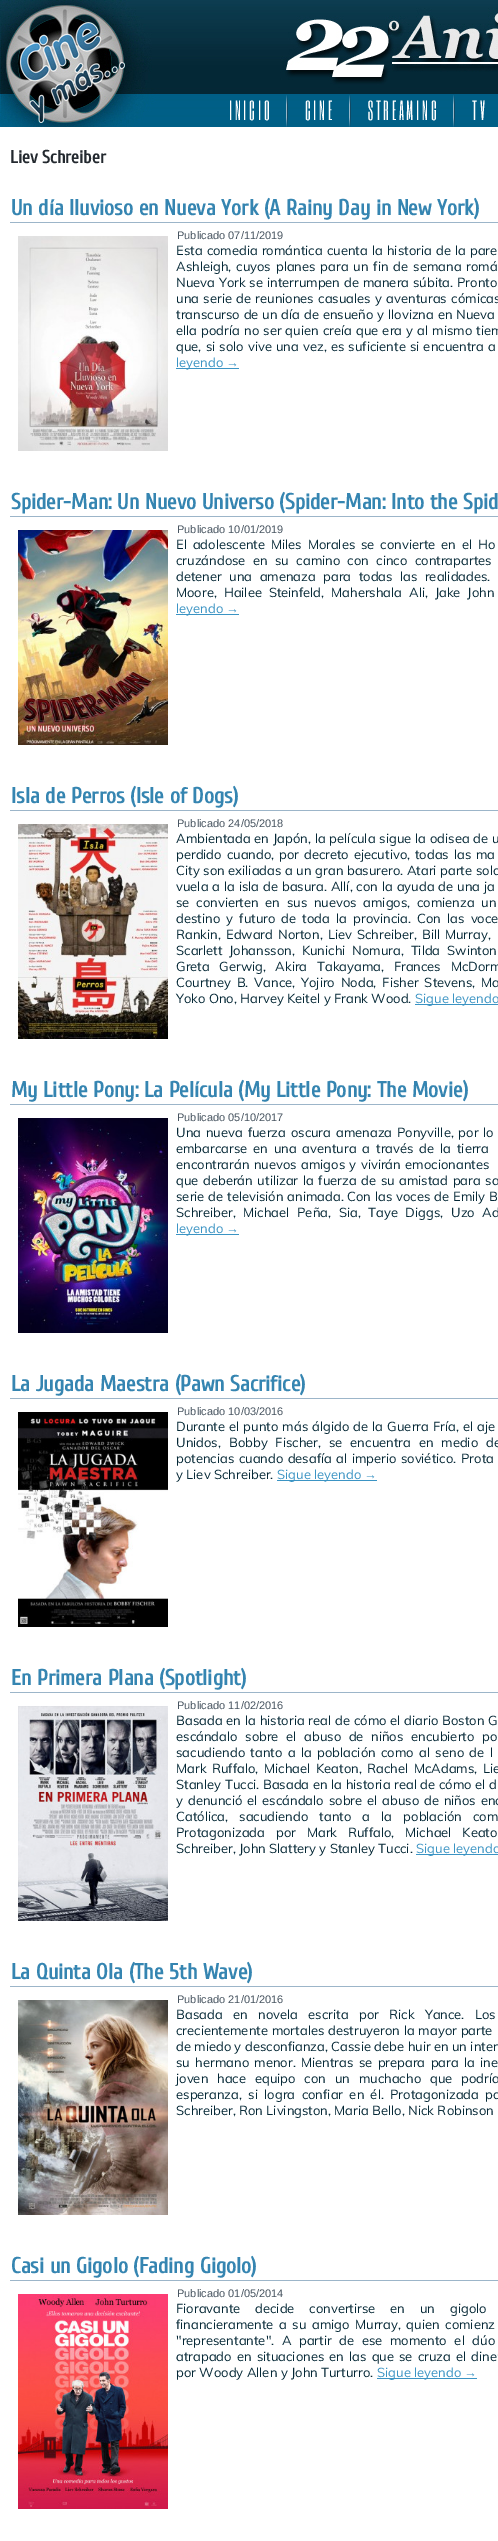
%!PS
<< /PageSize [498 2541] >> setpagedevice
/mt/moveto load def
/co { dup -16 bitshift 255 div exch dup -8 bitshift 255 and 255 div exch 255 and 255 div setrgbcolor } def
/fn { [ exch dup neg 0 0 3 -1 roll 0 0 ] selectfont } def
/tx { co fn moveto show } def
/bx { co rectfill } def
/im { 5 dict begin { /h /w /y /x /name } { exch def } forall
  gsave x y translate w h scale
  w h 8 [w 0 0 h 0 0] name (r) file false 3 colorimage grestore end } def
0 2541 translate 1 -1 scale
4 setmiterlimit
0 0 498 2541 16#FFFFFF bx
(media/1.raw) 0 0 498 127 im
(media/2.raw) 286 95 2 32 im
(media/2.raw) 349 95 2 32 im
(media/2.raw) 453 95 2 32 im
10 222 488 1 16#9CB5C9 bx
(media/3.raw) 18 236 150 215 im
176 368 63 1 16#3B94C4 bx
10 516 488 1 16#9CB5C9 bx
(media/4.raw) 18 530 150 215 im
176 614 63 1 16#3B94C4 bx
10 810 488 1 16#9CB5C9 bx
(media/5.raw) 18 824 150 215 im
415 1004 83 1 16#3B94C4 bx
10 1104 488 1 16#9CB5C9 bx
(media/6.raw) 18 1118 150 215 im
176 1234 63 1 16#3B94C4 bx
10 1398 488 1 16#9CB5C9 bx
(media/7.raw) 18 1412 150 215 im
277 1480 100 1 16#3B94C4 bx
10 1692 488 1 16#9CB5C9 bx
(media/8.raw) 18 1706 150 215 im
416 1854 82 1 16#3B94C4 bx
10 1986 488 1 16#9CB5C9 bx
(media/9.raw) 18 2000 150 215 im
10 2280 488 1 16#9CB5C9 bx
(media/10.raw) 18 2294 150 215 im
377 2378 100 1 16#3B94C4 bx
(I N I C I O) 229 120 /SixCaps-Regular 23 16#FFFFFF tx
(C I N E) 305 120 /SixCaps-Regular 23 16#FFFFFF tx
(S T R E A M I N G) 368 120 /SixCaps-Regular 23 16#FFFFFF tx
(T V) 472 120 /SixCaps-Regular 23 16#FFFFFF tx
(Liev Schreiber) 10 163 /Cuprum-Bold 18 16#23292F tx
(Un día lluvioso en Nueva York \(A Rainy Day in New York\)) 11 215 /Cuprum-Bold 22 16#3585B1 tx
(Publicado 07/11/2019) 177 239 /LiberationSans-Regular 11 16#485561 tx
/Muli-Regular 13 fn
16#052836 co
176 255 mt .75 0 32 (Esta comedia romántica cuenta la historia de la pare) widthshow
176 271 mt 1.5 0 32 (Ashleigh, cuyos planes para un fin de semana romá) widthshow
176 287 mt .5 0 32 (Nueva York se interrumpen de manera súbita. Pronto) widthshow
176 303 mt 1 0 32 (una serie de reuniones casuales y aventuras cómicas) widthshow
176 319 mt .5 0 32 (transcurso de un día de ensueño y llovizna en Nueva) widthshow
176 335 mt .75 0 32 (ella podría no ser quien creía que era y al mismo tiem) widthshow
176 351 mt .75 0 32 (que, si solo vive una vez, es suficiente si encuentra a) widthshow
(leyendo) 176 367 /Muli-Regular 13 16#3B94C4 tx
(→) 226 367 /LiberationSans-Regular 13 16#3B94C4 tx
(Spider-Man: Un Nuevo Universo \(Spider-Man: Into the Spid) 11 509 /Cuprum-Bold 22 16#3585B1 tx
(Publicado 10/01/2019) 177 533 /LiberationSans-Regular 11 16#485561 tx
/Muli-Regular 13 fn
16#052836 co
176 549 mt 2.5 0 32 (El adolescente Miles Morales se convierte en el Ho) widthshow
176 565 mt 4 0 32 (cruzándose en su camino con cinco contrapartes) widthshow
176 581 mt 4 0 32 (detener una amenaza para todas las realidades.) widthshow
176 597 mt 3.5 0 32 (Moore, Hailee Steinfeld, Mahershala Ali, Jake John) widthshow
(leyendo) 176 613 /Muli-Regular 13 16#3B94C4 tx
(→) 226 613 /LiberationSans-Regular 13 16#3B94C4 tx
(Isla de Perros \(Isle of Dogs\)) 11 803 /Cuprum-Bold 22 16#3585B1 tx
(Publicado 24/05/2018) 177 827 /LiberationSans-Regular 11 16#485561 tx
/Muli-Regular 13 fn
16#052836 co
176 843 mt .5 0 32 (Ambientada en Japón, la película sigue la odisea de u) widthshow
176 859 mt 1.5 0 32 (perdido cuando, por decreto ejecutivo, todas las ma) widthshow
176 875 mt .25 0 32 (City son exiliadas a un gran basurero. Atari parte solo) widthshow
176 891 mt .5 0 32 (vuela a la isla de basura. Allí, con la ayuda de una ja) widthshow
176 907 mt 3.25 0 32 (se convierten en sus nuevos amigos, comienza un) widthshow
176 923 mt 2.75 0 32 (destino y futuro de toda la provincia.) widthshow
417 923 mt 2.75 0 32 (Con las voce) widthshow
176 939 mt 1.75 0 32 (Rankin, Edward Norton, Liev Schreiber, Bill Murray,) widthshow
176 955 mt 3.5 0 32 (Scarlett Johansson, Kunichi Nomura, Tilda Swinton) widthshow
176 971 mt 6.25 0 32 (Greta Gerwig, Akira Takayama, Frances McDorm) widthshow
176 987 mt 2.5 0 32 (Courtney B. Vance, Yojiro Noda, Fisher Stevens, Ma) widthshow
(Yoko Ono, Harvey Keitel y Frank Wood.) 176 1003 /Muli-Regular 13 16#052836 tx
(Sigue leyendo) 415 1003 /Muli-Regular 13 16#3B94C4 tx
(My Little Pony: La Película \(My Little Pony: The Movie\)) 11 1097 /Cuprum-Bold 22 16#3585B1 tx
(Publicado 05/10/2017) 177 1121 /LiberationSans-Regular 11 16#485561 tx
/Muli-Regular 13 fn
16#052836 co
176 1137 mt 1.5 0 32 (Una nueva fuerza oscura amenaza Ponyville, por lo) widthshow
176 1153 mt 2.5 0 32 (embarcarse en una aventura a través de la tierra) widthshow
176 1169 mt 1 0 32 (encontrarán nuevos amigos y vivirán emocionantes) widthshow
176 1185 mt 1.25 0 32 (que deberán utilizar la fuerza de su amistad para sa) widthshow
176 1201 mt .5 0 32 (serie de televisión animada.) widthshow
347 1201 mt .5 0 32 (Con las voces de Emily B) widthshow
176 1217 mt 4.25 0 32 (Schreiber, Michael Peña, Sia, Taye Diggs, Uzo Ad) widthshow
(leyendo) 176 1233 /Muli-Regular 13 16#3B94C4 tx
(→) 226 1233 /LiberationSans-Regular 13 16#3B94C4 tx
(La Jugada Maestra \(Pawn Sacrifice\)) 11 1391 /Cuprum-Bold 22 16#3585B1 tx
(Publicado 10/03/2016) 177 1415 /LiberationSans-Regular 11 16#485561 tx
/Muli-Regular 13 fn
16#052836 co
176 1431 mt .75 0 32 (Durante el punto más álgido de la Guerra Fría, el aje) widthshow
176 1447 mt 4.5 0 32 (Unidos, Bobby Fischer, se encuentra en medio de) widthshow
176 1463 mt 1 0 32 (potencias cuando desafía al imperio soviético.) widthshow
461 1463 mt 1 0 32 (Prota) widthshow
(y Liev Schreiber.) 176 1479 /Muli-Regular 13 16#052836 tx
(Sigue leyendo) 277 1479 /Muli-Regular 13 16#3B94C4 tx
(→) 364 1479 /LiberationSans-Regular 13 16#3B94C4 tx
(En Primera Plana \(Spotlight\)) 11 1685 /Cuprum-Bold 22 16#3585B1 tx
(Publicado 11/02/2016) 177 1709 /LiberationSans-Regular 11 16#485561 tx
/Muli-Regular 13 fn
16#052836 co
176 1725 mt .5 0 32 (Basada en la historia real de cómo el diario Boston G) widthshow
176 1741 mt 4.25 0 32 (escándalo sobre el abuso de niños encubierto po) widthshow
176 1757 mt 2 0 32 (sacudiendo tanto a la población como al seno de l) widthshow
176 1773 mt 2.25 0 32 (Mark Ruffalo, Michael Keaton, Rachel McAdams, Lie) widthshow
176 1789 mt .25 0 32 (Stanley Tucci. Basada en la historia real de cómo el d) widthshow
176 1805 mt 1.5 0 32 (y denunció el escándalo sobre el abuso de niños enc) widthshow
176 1821 mt 7.75 0 32 (Católica, sacudiendo tanto a la población com) widthshow
176 1837 mt 7.5 0 32 (Protagonizada por Mark Ruffalo, Michael Keato) widthshow
(Schreiber, John Slattery y Stanley Tucci.) 176 1853 /Muli-Regular 13 16#052836 tx
(Sigue leyendo) 416 1853 /Muli-Regular 13 16#3B94C4 tx
(La Quinta Ola \(The 5th Wave\)) 11 1979 /Cuprum-Bold 22 16#3585B1 tx
(Publicado 21/01/2016) 177 2003 /LiberationSans-Regular 11 16#485561 tx
/Muli-Regular 13 fn
16#052836 co
176 2019 mt 7 0 32 (Basada en novela escrita por Rick Yance. Los) widthshow
176 2035 mt .5 0 32 (crecientemente mortales destruyeron la mayor parte) widthshow
(de miedo y desconfianza, Cassie debe huir en un inten) 176 2051 /Muli-Regular 13 16#052836 tx
176 2067 mt 2 0 32 (su hermano menor. Mientras se prepara para la ine) widthshow
176 2083 mt 5.5 0 32 (joven hace equipo con un muchacho que podría) widthshow
176 2099 mt 3 0 32 (esperanza, si logra confiar en él.) widthshow
390 2099 mt 3 0 32 (Protagonizada po) widthshow
(Schreiber, Ron Livingston, Maria Bello, Nick Robinson) 176 2115 /Muli-Regular 13 16#052836 tx
(Casi un Gigolo \(Fading Gigolo\)) 11 2273 /Cuprum-Bold 22 16#3585B1 tx
(Publicado 01/05/2014) 177 2297 /LiberationSans-Regular 11 16#485561 tx
/Muli-Regular 13 fn
16#052836 co
176 2313 mt 11.5 0 32 (Fioravante decide convertirse en un gigolo) widthshow
176 2329 mt 2.25 0 32 (financieramente a su amigo Murray, quien comienz) widthshow
176 2345 mt 4.25 0 32 ("representante". A partir de ese momento el dúo) widthshow
176 2361 mt 1.75 0 32 (atrapado en situaciones en las que se cruza el diner) widthshow
(por Woody Allen y John Turturro.) 176 2377 /Muli-Regular 13 16#052836 tx
(Sigue leyendo) 377 2377 /Muli-Regular 13 16#3B94C4 tx
(→) 464 2377 /LiberationSans-Regular 13 16#3B94C4 tx
showpage
